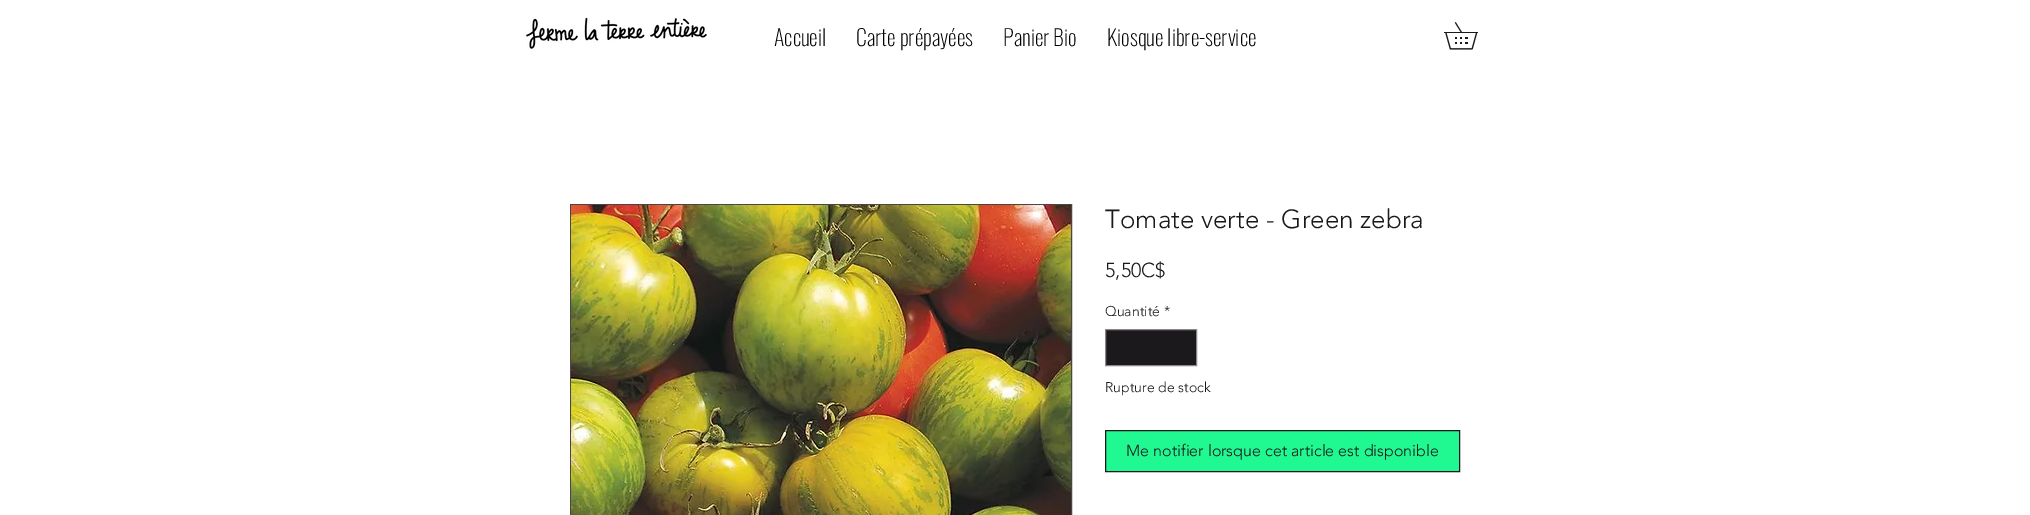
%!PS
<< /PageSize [2030 515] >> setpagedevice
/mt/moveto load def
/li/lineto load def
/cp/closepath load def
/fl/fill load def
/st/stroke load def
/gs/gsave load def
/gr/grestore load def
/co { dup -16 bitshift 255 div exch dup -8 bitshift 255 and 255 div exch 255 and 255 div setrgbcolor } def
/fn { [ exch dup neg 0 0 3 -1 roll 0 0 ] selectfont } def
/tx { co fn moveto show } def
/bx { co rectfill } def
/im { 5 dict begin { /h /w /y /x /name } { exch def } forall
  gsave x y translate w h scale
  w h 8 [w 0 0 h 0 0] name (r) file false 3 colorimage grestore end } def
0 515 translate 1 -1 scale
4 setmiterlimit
0 0 2030 515 16#FFFFFF bx
(media/1.raw) 526 17 181 32 im
(media/2.raw) 1444 22 34 28 im
16#494549 co
570.5 204.5 501 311 rectstroke
(media/3.raw) 571 205 500 310 im
16#1C191C co
1105.5 329.5 mt 1196.5 329.5 li 1196.5 365.5 li 1105.5 365.5 li cp gs fl gr
16#898589 co
st
16#20F992 co
1105.5 430.5 mt 1459.5 430.5 li 1459.5 471.5 li 1105.5 471.5 li cp gs fl gr
16#1C191C co
st
(Accueil) 774 46 /Oswald-ExtraLight 22 16#000000 tx
(Carte prépayées) 856 46 /Oswald-ExtraLight 22 16#000000 tx
(Panier Bio) 1003 46 /Oswald-ExtraLight 22 16#000000 tx
(Kiosque libre-service) 1107 46 /Oswald-ExtraLight 22 16#000000 tx
(Tomate verte - Green zebra) 1105 228 /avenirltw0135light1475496-Light 26 16#1C191C tx
(5,50C$) 1105 277 /avenirltw0135light1475496-Light 20 16#1C191C tx
(Quantité) 1105 316 /avenirltw0135light1475496-Light 14 16#1C191C tx
(*) 1164 316 /avenirltw0135light1475496-Light 14 16#1C191C tx
(Rupture de stock) 1105 392 /avenirltw0135light1475496-Light 14 16#1C191C tx
(Me notifier lorsque cet article est disponible) 1126 456 /avenirltw0135light1475496-Light 16 16#1C191C tx
showpage
